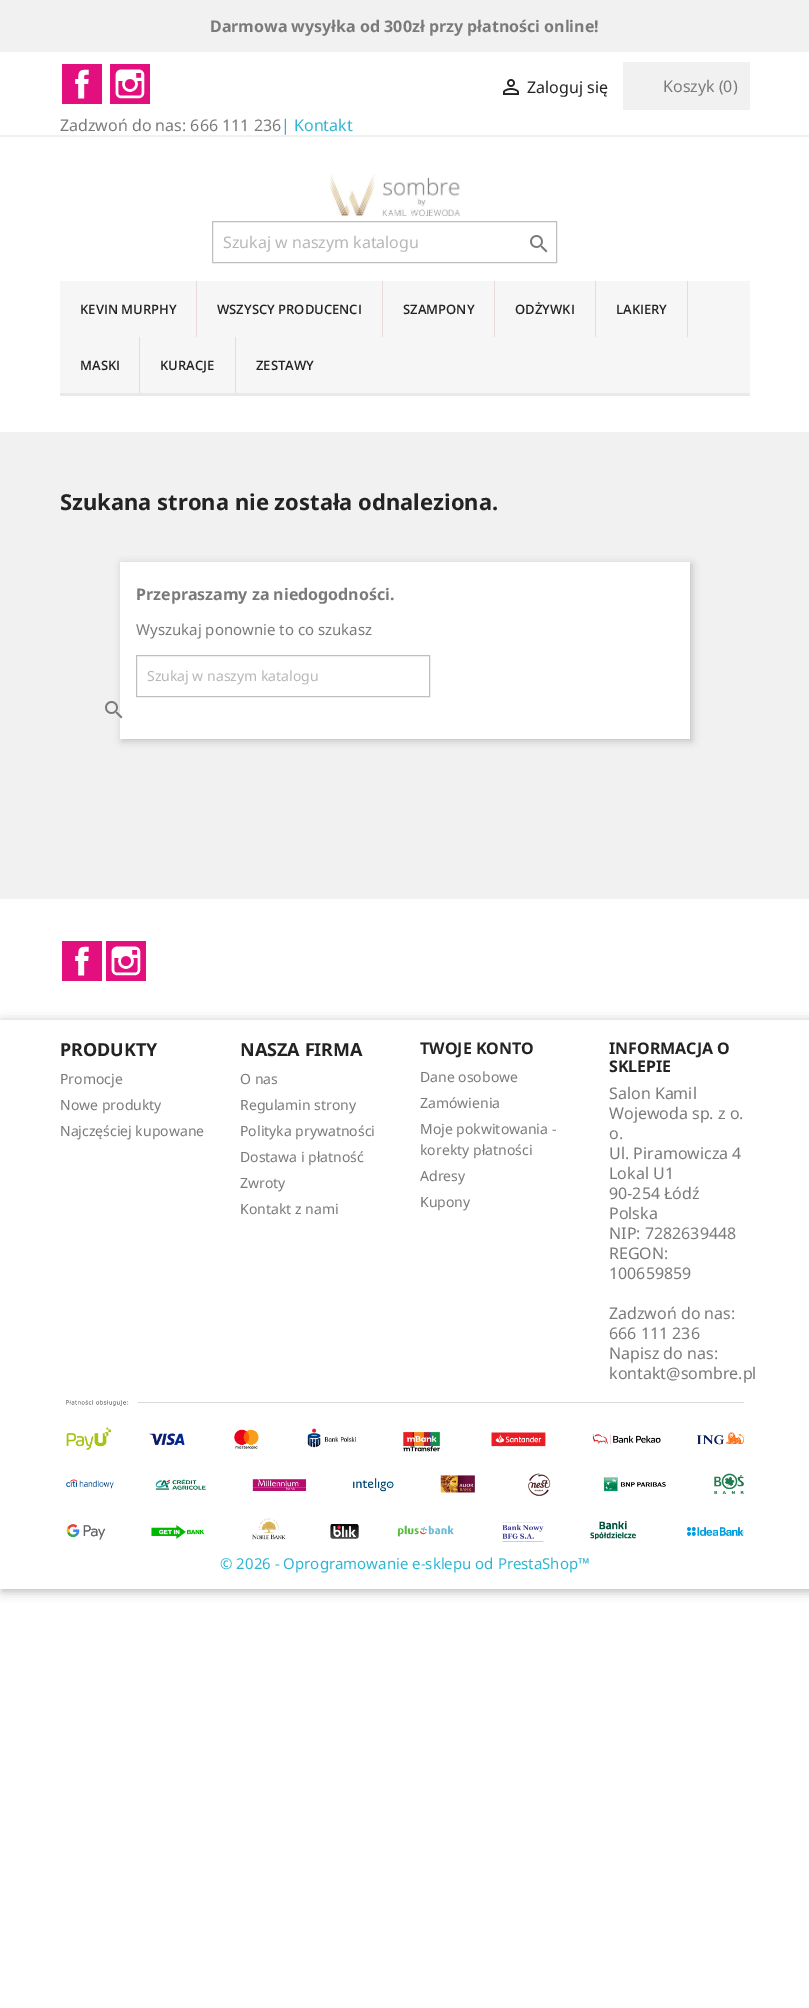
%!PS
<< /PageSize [809 2008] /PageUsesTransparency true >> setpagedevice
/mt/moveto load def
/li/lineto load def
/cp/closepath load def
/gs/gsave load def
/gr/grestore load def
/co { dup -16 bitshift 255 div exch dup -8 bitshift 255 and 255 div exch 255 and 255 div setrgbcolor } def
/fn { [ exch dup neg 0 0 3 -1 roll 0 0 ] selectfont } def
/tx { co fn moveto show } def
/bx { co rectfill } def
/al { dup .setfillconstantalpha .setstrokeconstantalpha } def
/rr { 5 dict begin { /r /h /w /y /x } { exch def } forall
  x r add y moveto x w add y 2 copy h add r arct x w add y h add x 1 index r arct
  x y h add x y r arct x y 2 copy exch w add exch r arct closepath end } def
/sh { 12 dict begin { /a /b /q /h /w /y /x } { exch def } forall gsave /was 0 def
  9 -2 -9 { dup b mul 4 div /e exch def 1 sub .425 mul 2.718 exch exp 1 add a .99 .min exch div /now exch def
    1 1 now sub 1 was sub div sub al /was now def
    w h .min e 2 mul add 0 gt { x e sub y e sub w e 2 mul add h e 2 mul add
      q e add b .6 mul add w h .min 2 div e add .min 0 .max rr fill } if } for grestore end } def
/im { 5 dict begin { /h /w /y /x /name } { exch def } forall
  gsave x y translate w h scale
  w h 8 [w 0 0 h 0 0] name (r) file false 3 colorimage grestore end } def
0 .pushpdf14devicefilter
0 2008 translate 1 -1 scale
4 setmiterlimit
0 0 809 2008 16#FFFFFF bx
0 135 809 2 16#F1F1F1 bx
0 0 809 52 16#F1F1F1 bx
(media/1.raw) 503 79 16 16 im
623 62 127 48 16#F1F1F1 bx
62 64 40 40 16#E40F7E bx
(media/2.raw) 75 69 14 30 im
110 64 40 40 16#E40F7E bx
(media/3.raw) 115 69 30 30 im
(media/4.raw) 330 174 131 42 im
16#BFBFBF co
212.5 221.5 344 41 rectstroke
(media/5.raw) 530 235 18 18 im
60 281 690 112 16#F6F6F6 bx
60 393 690 3 16#E9E9E9 bx
196 281 1 56 16#EADBDB bx
382 281 1 56 16#EADBDB bx
494 281 1 56 16#EADBDB bx
595 281 1 56 16#EADBDB bx
687 281 1 56 16#EADBDB bx
139 337 1 56 16#EADBDB bx
235 337 1 56 16#EADBDB bx
0 432 809 467 16#F1F1F1 bx
16#000000 co
122 564 570 177 0 4 .2 sh
120 562 570 177 16#FFFFFF bx
16#BFBFBF co
136.5 655.5 293 41 rectstroke
(media/6.raw) 105 701 18 18 im
62 941 40 40 16#E40F7E bx
(media/2.raw) 75 946 14 30 im
106 941 40 40 16#E40F7E bx
(media/3.raw) 111 946 30 30 im
gs
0 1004 mt 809 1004 li 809 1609 li 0 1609 li cp 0 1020 mt 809 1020 li 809 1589 li 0 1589 li cp eoclip newpath
16#000000 co
2 1022 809 569 0 5.5 .3 sh
gr
(media/7.raw) 66 1400 678 142 im
(Darmowa wysyłka od 300zł przy płatności online!) 210 32 /NotoSans-Bold 16 16#7A7A7A tx
(Zaloguj się) 527 93 /NotoSans-Regular 16 16#232323 tx
(Koszyk \(0\)) 663 92 /NotoSans-Regular 16 16#7A7A7A tx
(Zadzwoń do nas: 666 111 236) 60 131 /NotoSans-Regular 16 16#7A7A7A tx
(| Kontakt) 281 131 /NotoSans-Regular 16 16#2FB5D2 tx
(Szukaj w naszym katalogu) 223 248 /NotoSans-Regular 16 16#B7B7B7 tx
(KEVIN MURPHY) 80 314 /OpenSans-SemiBold 13 16#232323 tx
(WSZYSCY PRODUCENCI) 217 314 /OpenSans-SemiBold 13 16#232323 tx
(SZAMPONY) 403 314 /OpenSans-SemiBold 13 16#232323 tx
(ODŻYWKI) 515 314 /OpenSans-SemiBold 13 16#232323 tx
(LAKIERY) 616 314 /OpenSans-SemiBold 13 16#232323 tx
(MASKI) 80 370 /OpenSans-SemiBold 13 16#232323 tx
(KURACJE) 160 370 /OpenSans-SemiBold 13 16#232323 tx
(ZESTAWY) 256 370 /OpenSans-SemiBold 13 16#232323 tx
(Szukana strona nie została odnaleziona.) 60 510 /NotoSans-Bold 22 16#232323 tx
(Przepraszamy za niedogodności.) 136 600 /NotoSans-Bold 16 16#7A7A7A tx
(Wyszukaj ponownie to co szukasz) 136 635 /NotoSans-Regular 15 16#7A7A7A tx
(Szukaj w naszym katalogu) 147 681 /NotoSans-Regular 14 16#B7B7B7 tx
(PRODUKTY) 60 1056 /NotoSans-Bold 18 16#232323 tx
(Promocje) 60 1084 /NotoSans-Regular 14 16#7A7A7A tx
(Nowe produkty) 60 1110 /NotoSans-Regular 14 16#7A7A7A tx
(Najczęściej kupowane) 60 1136 /NotoSans-Regular 14 16#7A7A7A tx
(NASZA FIRMA) 240 1056 /NotoSans-Bold 18 16#232323 tx
(O nas) 240 1084 /NotoSans-Regular 14 16#7A7A7A tx
(Regulamin strony) 240 1110 /NotoSans-Regular 14 16#7A7A7A tx
(Polityka prywatności) 240 1136 /NotoSans-Regular 14 16#7A7A7A tx
(Dostawa i płatność) 240 1162 /NotoSans-Regular 14 16#7A7A7A tx
(Zwroty) 240 1188 /NotoSans-Regular 14 16#7A7A7A tx
(Kontakt z nami) 240 1214 /NotoSans-Regular 14 16#7A7A7A tx
(TWOJE KONTO) 420 1054 /NotoSans-Bold 16 16#232323 tx
(Dane osobowe) 420 1082 /NotoSans-Regular 14 16#7A7A7A tx
(Zamówienia) 420 1108 /NotoSans-Regular 14 16#7A7A7A tx
(Moje pokwitowania -) 420 1134 /NotoSans-Regular 14 16#7A7A7A tx
(korekty płatności) 420 1155 /NotoSans-Regular 14 16#7A7A7A tx
(Adresy) 420 1181 /NotoSans-Regular 14 16#7A7A7A tx
(Kupony) 420 1207 /NotoSans-Regular 14 16#7A7A7A tx
(INFORMACJA O) 609 1054 /NotoSans-Bold 16 16#232323 tx
(SKLEPIE) 609 1072 /NotoSans-Bold 16 16#232323 tx
(Salon Kamil) 609 1099 /NotoSans-Regular 16 16#7A7A7A tx
(Wojewoda sp. z o.) 609 1119 /NotoSans-Regular 16 16#7A7A7A tx
(o.) 609 1139 /NotoSans-Regular 16 16#7A7A7A tx
(Ul. Piramowicza 4) 609 1159 /NotoSans-Regular 16 16#7A7A7A tx
(Lokal U1) 609 1179 /NotoSans-Regular 16 16#7A7A7A tx
(90-254 Łódź) 609 1199 /NotoSans-Regular 16 16#7A7A7A tx
(Polska) 609 1219 /NotoSans-Regular 16 16#7A7A7A tx
(NIP: 7282639448) 609 1239 /NotoSans-Regular 16 16#7A7A7A tx
(REGON:) 609 1259 /NotoSans-Regular 16 16#7A7A7A tx
(100659859) 609 1279 /NotoSans-Regular 16 16#7A7A7A tx
(Zadzwoń do nas:) 609 1319 /NotoSans-Regular 16 16#7A7A7A tx
(666 111 236) 609 1339 /NotoSans-Regular 16 16#7A7A7A tx
(Napisz do nas:) 609 1359 /NotoSans-Regular 16 16#7A7A7A tx
(kontakt@sombre.pl) 609 1379 /NotoSans-Regular 16 16#7A7A7A tx
(© 2026 - Oprogramowanie e-sklepu od PrestaShop™) 220 1569 /NotoSans-Regular 15 16#2FB5D2 tx
.poppdf14devicefilter showpage
